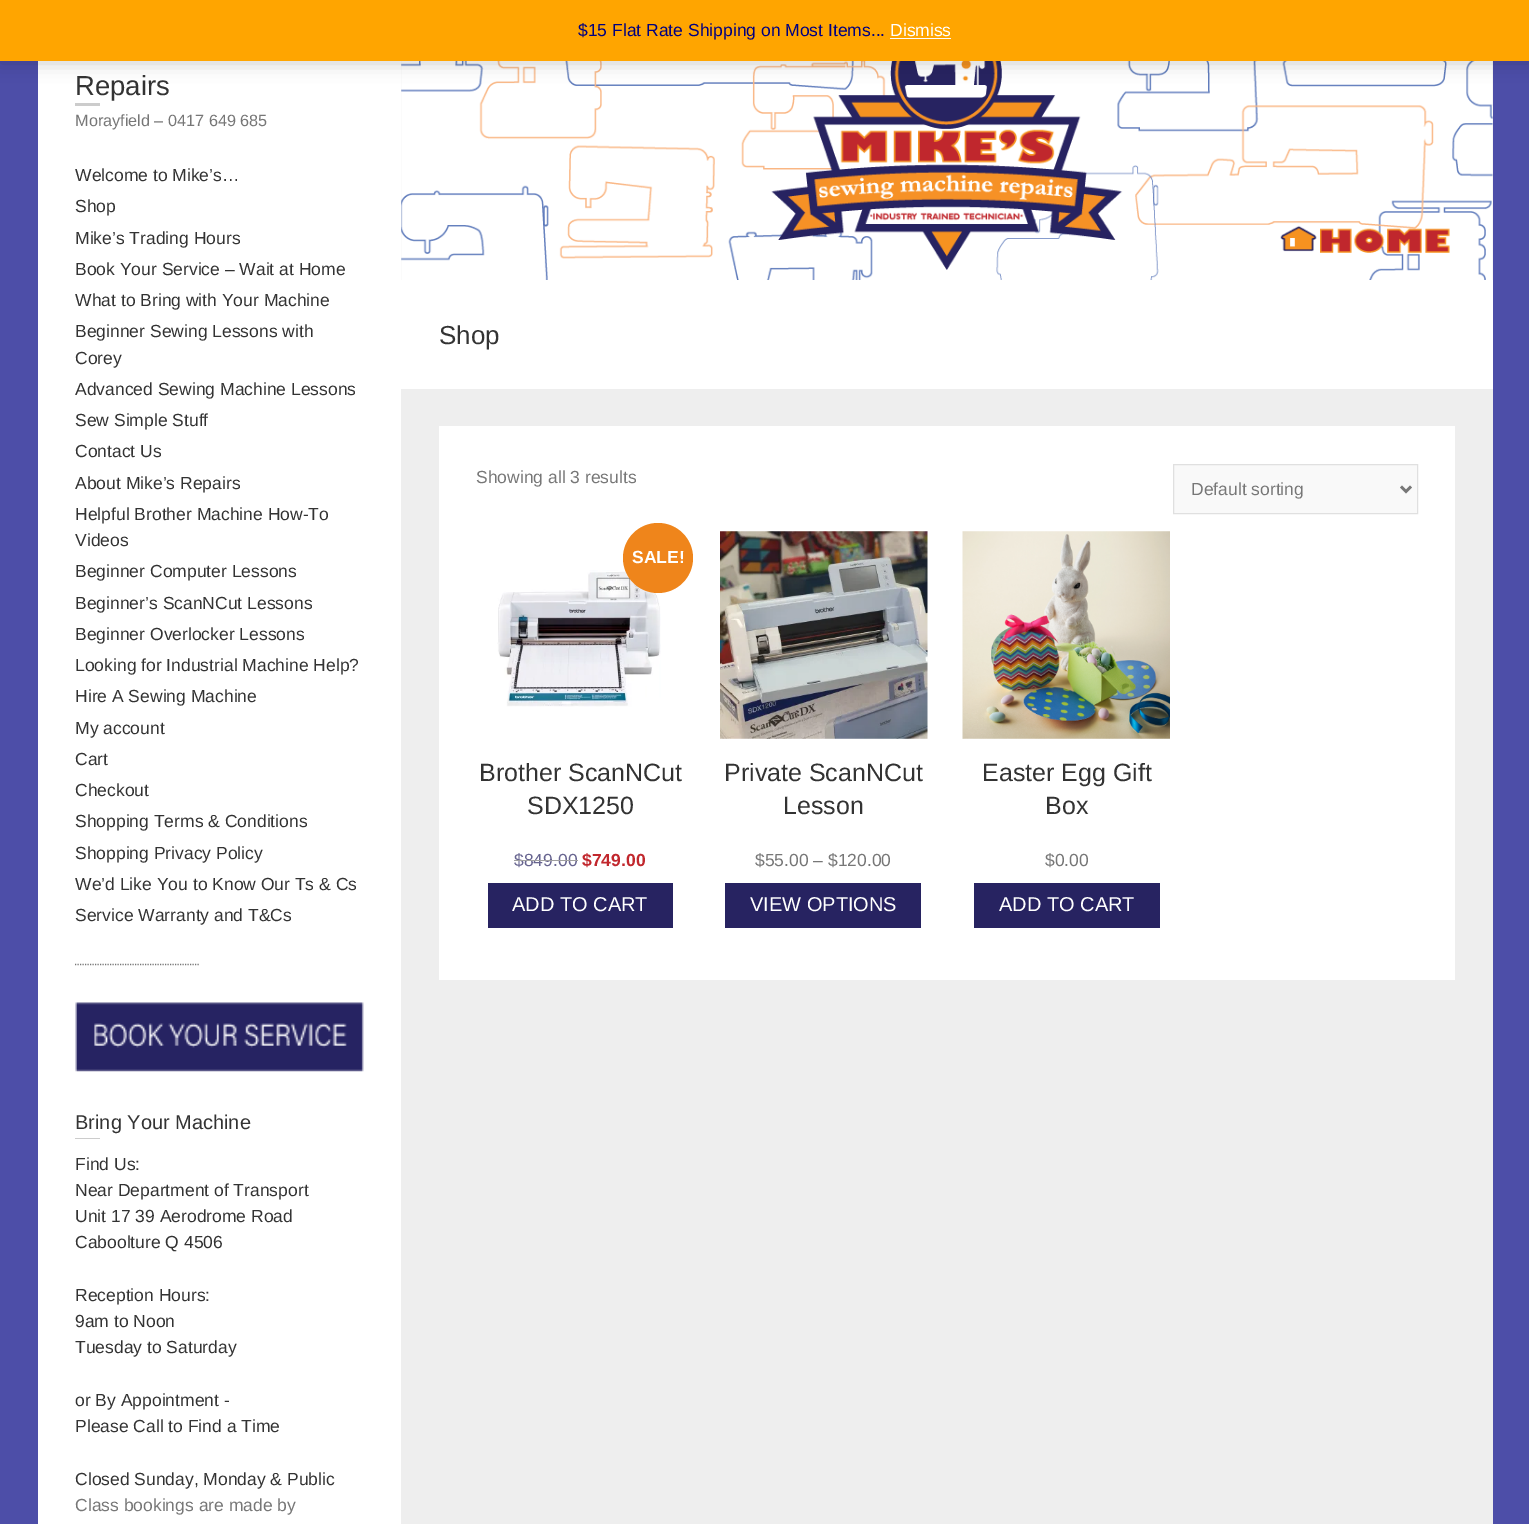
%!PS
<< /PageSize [1529 1524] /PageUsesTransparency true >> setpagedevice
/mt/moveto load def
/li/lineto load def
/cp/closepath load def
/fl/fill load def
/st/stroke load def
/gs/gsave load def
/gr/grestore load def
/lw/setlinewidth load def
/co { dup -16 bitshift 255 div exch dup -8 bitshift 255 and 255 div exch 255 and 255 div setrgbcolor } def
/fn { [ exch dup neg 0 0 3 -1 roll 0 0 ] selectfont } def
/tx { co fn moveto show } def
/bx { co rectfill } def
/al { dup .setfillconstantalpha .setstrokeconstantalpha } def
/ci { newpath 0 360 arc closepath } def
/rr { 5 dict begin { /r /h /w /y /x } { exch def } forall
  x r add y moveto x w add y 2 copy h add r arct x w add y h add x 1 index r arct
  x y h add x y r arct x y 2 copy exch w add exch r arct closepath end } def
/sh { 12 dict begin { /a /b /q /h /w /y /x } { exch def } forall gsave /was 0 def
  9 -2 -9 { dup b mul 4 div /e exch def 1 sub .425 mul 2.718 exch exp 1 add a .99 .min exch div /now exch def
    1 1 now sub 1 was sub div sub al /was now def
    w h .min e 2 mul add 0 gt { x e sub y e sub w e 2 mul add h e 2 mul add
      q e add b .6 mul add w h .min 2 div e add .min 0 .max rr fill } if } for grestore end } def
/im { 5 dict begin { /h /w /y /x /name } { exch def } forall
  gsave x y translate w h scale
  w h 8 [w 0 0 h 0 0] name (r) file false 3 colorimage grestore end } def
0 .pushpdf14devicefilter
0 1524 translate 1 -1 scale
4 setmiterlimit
0 0 1529 1524 16#4D4EA8 bx
401 61 1092 1463 16#EEEEEE bx
38 61 363 1463 16#FFFFFF bx
(media/1.raw) 401 61 1092 219 im
16#000000 co
0 1 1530 62 0 9 .2 sh
0 0 1529 61 16#FFA500 bx
890 38 61 1 16#FCFBFE bx
75 103 25 3 16#CCCCCC bx
16#777777 co
1.2 lw
[1.25 1.25] 0 setdash
75 964.5 mt 200 964.5 li st
401 280 1092 109 16#FFFFFF bx
439 426 1016 554 16#FFFFFF bx
16#F9F9F9 co
1173.5 464.5 mt 1417.5 464.5 li 1417.5 513.5 li 1173.5 513.5 li cp gs fl gr
16#E0E0E0 co
1 lw
[] 0 setdash
st
16#777777 co
2.5 lw
1401 486.5 mt 1406 491.5 li 1411 486.5 li st
(media/2.raw) 497 570 164 137 im
16#EF851B co
658 558 35 ci fl
488 883 185 45 16#272361 bx
(media/3.raw) 720 531 208 208 im
725 883 196 45 16#272361 bx
(media/4.raw) 962 531 208 208 im
974 883 186 45 16#272361 bx
(media/5.raw) 75 1002 289 70 im
75 1138 25 1 16#CCCCCC bx
($15 Flat Rate Shipping on Most Items...) 578 36 /LiberationSans-Regular 17.5 16#000080 tx
(Dismiss) 890 36 /LiberationSans-Regular 17.5 16#FFFFFF tx
(Repairs) 75 95 /LiberationSans-Regular 27.5 16#333333 tx
(Morayfield – 0417 649 685) 75 126 /LiberationSans-Regular 16.25 16#777777 tx
(Welcome to Mike’s…) 75 181 /LiberationSans-Regular 17.5 16#333333 tx
(Shop) 75 212 /LiberationSans-Regular 17.5 16#333333 tx
(Mike’s Trading Hours) 75 244 /LiberationSans-Regular 17.5 16#333333 tx
(Book Your Service – Wait at Home) 75 275 /LiberationSans-Regular 17.5 16#333333 tx
(What to Bring with Your Machine) 75 306 /LiberationSans-Regular 17.5 16#333333 tx
(Beginner Sewing Lessons with) 75 337 /LiberationSans-Regular 17.5 16#333333 tx
(Corey) 75 364 /LiberationSans-Regular 17.5 16#333333 tx
(Advanced Sewing Machine Lessons) 75 395 /LiberationSans-Regular 17.5 16#333333 tx
(Sew Simple Stuff) 75 426 /LiberationSans-Regular 17.5 16#333333 tx
(Contact Us) 75 457 /LiberationSans-Regular 17.5 16#333333 tx
(About Mike’s Repairs) 75 489 /LiberationSans-Regular 17.5 16#333333 tx
(Helpful Brother Machine How-To) 75 520 /LiberationSans-Regular 17.5 16#333333 tx
(Videos) 75 546 /LiberationSans-Regular 17.5 16#333333 tx
(Beginner Computer Lessons) 75 577 /LiberationSans-Regular 17.5 16#333333 tx
(Beginner’s ScanNCut Lessons) 75 609 /LiberationSans-Regular 17.5 16#333333 tx
(Beginner Overlocker Lessons) 75 640 /LiberationSans-Regular 17.5 16#333333 tx
(Looking for Industrial Machine Help?) 75 671 /LiberationSans-Regular 17.5 16#333333 tx
(Hire A Sewing Machine) 75 702 /LiberationSans-Regular 17.5 16#333333 tx
(My account) 75 734 /LiberationSans-Regular 17.5 16#333333 tx
(Cart) 75 765 /LiberationSans-Regular 17.5 16#333333 tx
(Checkout) 75 796 /LiberationSans-Regular 17.5 16#333333 tx
(Shopping Terms & Conditions) 75 827 /LiberationSans-Regular 17.5 16#333333 tx
(Shopping Privacy Policy) 75 859 /LiberationSans-Regular 17.5 16#333333 tx
(We’d Like You to Know Our Ts & Cs) 75 890 /LiberationSans-Regular 17.5 16#333333 tx
(Service Warranty and T&Cs) 75 921 /LiberationSans-Regular 17.5 16#333333 tx
(Shop) 439 344 /LiberationSans-Regular 26 16#333333 tx
(Showing all 3 results) 476 483 /LiberationSans-Regular 17.5 16#777777 tx
(Default sorting) 1191 495 /LiberationSans-Regular 17.5 16#777777 tx
(SALE!) 632 563 /LiberationSans-Bold 17.5 16#FFFFFF tx
(Brother ScanNCut) 479 781 /LiberationSans-Regular 25 16#333333 tx
(SDX1250) 527 814 /LiberationSans-Regular 25 16#333333 tx
($849.00) 514 866 /LiberationSans-Regular 17.5 16#686590 tx
514 860 64 1 16#A0A0A0 bx
($749.00) 582 866 /LiberationSans-Bold 17.5 16#C1272D tx
(ADD TO CART) 512 911 /LiberationSans-Regular 20 16#FFFFFF tx
(Private ScanNCut) 724 781 /LiberationSans-Regular 25 16#333333 tx
(Lesson) 783 814 /LiberationSans-Regular 25 16#333333 tx
($55.00 – $120.00) 755 866 /LiberationSans-Regular 17.5 16#777777 tx
(VIEW OPTIONS) 750 911 /LiberationSans-Regular 20 16#FFFFFF tx
(Easter Egg Gift) 982 781 /LiberationSans-Regular 25 16#333333 tx
(Box) 1045 814 /LiberationSans-Regular 25 16#333333 tx
($0.00) 1045 866 /LiberationSans-Regular 17.5 16#777777 tx
(ADD TO CART) 999 911 /LiberationSans-Regular 20 16#FFFFFF tx
(Bring Your Machine) 75 1129 /LiberationSans-Regular 20 16#333333 tx
(Find Us:) 75 1170 /LiberationSans-Regular 17.5 16#333333 tx
(Near Department of Transport) 75 1196 /LiberationSans-Regular 17.5 16#333333 tx
(Unit 17 39 Aerodrome Road) 75 1222 /LiberationSans-Regular 17.5 16#333333 tx
(Caboolture Q 4506) 75 1248 /LiberationSans-Regular 17.5 16#333333 tx
(Reception Hours:) 75 1301 /LiberationSans-Regular 17.5 16#333333 tx
(9am to Noon) 75 1327 /LiberationSans-Regular 17.5 16#333333 tx
(Tuesday to Saturday) 75 1353 /LiberationSans-Regular 17.5 16#333333 tx
(or By Appointment -) 75 1406 /LiberationSans-Regular 17.5 16#333333 tx
(Please Call to Find a Time) 75 1432 /LiberationSans-Regular 17.5 16#333333 tx
(Closed Sunday, Monday & Public) 75 1485 /LiberationSans-Regular 17.5 16#333333 tx
(Class bookings are made by) 75 1511 /LiberationSans-Regular 17.5 16#777777 tx
.poppdf14devicefilter showpage
